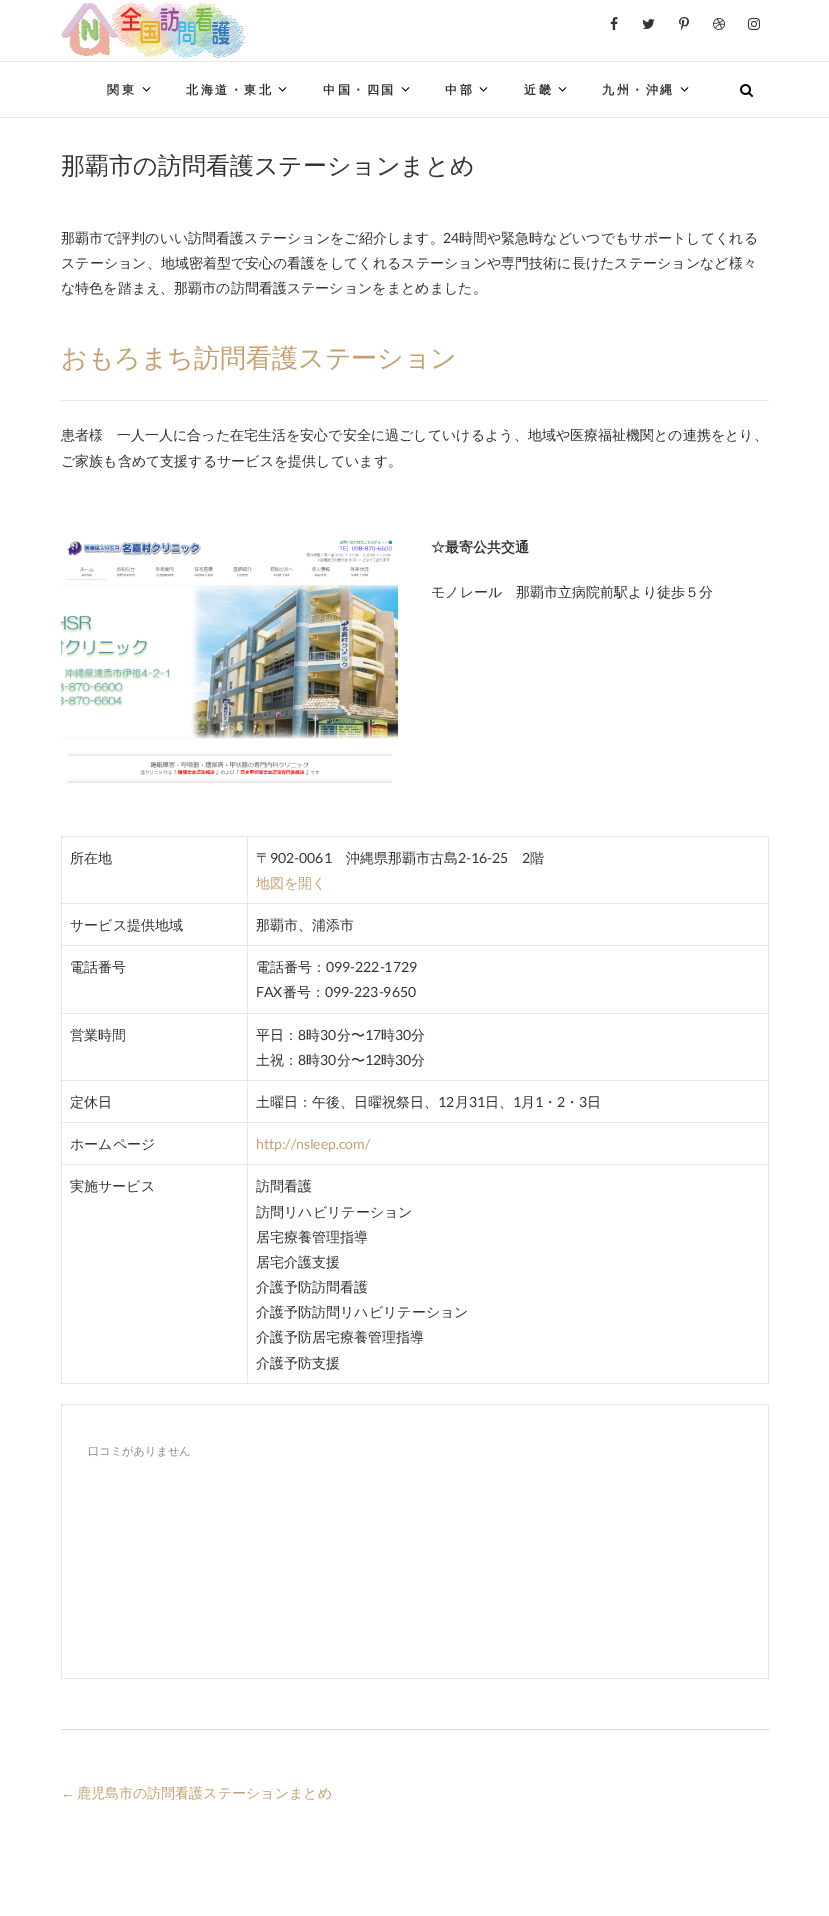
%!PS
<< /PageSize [829 1916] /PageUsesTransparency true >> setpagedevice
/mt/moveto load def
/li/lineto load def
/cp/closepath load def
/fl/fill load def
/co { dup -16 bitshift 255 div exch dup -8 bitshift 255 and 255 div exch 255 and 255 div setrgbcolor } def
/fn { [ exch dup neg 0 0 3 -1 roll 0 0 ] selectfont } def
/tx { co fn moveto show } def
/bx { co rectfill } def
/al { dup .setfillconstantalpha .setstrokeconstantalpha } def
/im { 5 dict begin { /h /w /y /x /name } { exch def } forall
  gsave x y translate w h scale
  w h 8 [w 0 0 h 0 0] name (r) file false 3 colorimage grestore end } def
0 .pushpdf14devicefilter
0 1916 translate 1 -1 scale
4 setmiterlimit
0 0 829 1916 16#FFFFFF bx
0 61 829 1 16#E6E6E6 bx
(media/1.raw) 61 1 184 58 im
(media/2.raw) 610 17 8 13 im
(media/3.raw) 642 19 13 10 im
(media/4.raw) 679 17 10 13 im
(media/5.raw) 713 18 12 12 im
(media/6.raw) 748 18 12 12 im
0 117 829 1 16#E6E6E6 bx
(media/7.raw) 142 87 9 5 im
(media/7.raw) 278 87 9 5 im
(media/7.raw) 401 87 9 5 im
(media/7.raw) 479 87 9 5 im
(media/7.raw) 558 87 9 5 im
(media/7.raw) 680 87 9 5 im
(media/8.raw) 740 84 13 13 im
61 400 708 1 16#E6E6E6 bx
(media/9.raw) 61 540 337 243 im
61 836 mt 769 836 li 769 837 li 62 837 li cp fl
0.1 al
16#000000 co
61 1384 mt 61 836 li 62 837 li 62 1384 li cp fl
1 al
16#E6E6E6 co
248 837 mt 248 904 li 247 903 li 247 837 li cp fl
0.1 al
16#000000 co
248 904 mt 62 904 li 62 903 li 247 903 li cp fl
1 al
16#E6E6E6 co
769 837 mt 769 904 li 768 903 li 768 837 li cp fl
0.1 al
16#000000 co
769 904 mt 248 904 li 248 903 li 768 903 li cp fl
1 al
16#E6E6E6 co
248 904 mt 248 946 li 247 945 li 247 904 li cp fl
0.1 al
16#000000 co
248 946 mt 62 946 li 62 945 li 247 945 li cp fl
1 al
16#E6E6E6 co
769 904 mt 769 946 li 768 945 li 768 904 li cp fl
0.1 al
16#000000 co
769 946 mt 248 946 li 248 945 li 768 945 li cp fl
1 al
16#E6E6E6 co
248 946 mt 248 1014 li 247 1013 li 247 946 li cp fl
0.1 al
16#000000 co
248 1014 mt 62 1014 li 62 1013 li 247 1013 li cp fl
1 al
16#E6E6E6 co
769 946 mt 769 1014 li 768 1013 li 768 946 li cp fl
0.1 al
16#000000 co
769 1014 mt 248 1014 li 248 1013 li 768 1013 li cp fl
1 al
16#E6E6E6 co
248 1014 mt 248 1081 li 247 1080 li 247 1014 li cp fl
0.1 al
16#000000 co
248 1081 mt 62 1081 li 62 1080 li 247 1080 li cp fl
1 al
16#E6E6E6 co
769 1014 mt 769 1081 li 768 1080 li 768 1014 li cp fl
0.1 al
16#000000 co
769 1081 mt 248 1081 li 248 1080 li 768 1080 li cp fl
1 al
16#E6E6E6 co
248 1081 mt 248 1123 li 247 1122 li 247 1081 li cp fl
0.1 al
16#000000 co
248 1123 mt 62 1123 li 62 1122 li 247 1122 li cp fl
1 al
16#E6E6E6 co
769 1081 mt 769 1123 li 768 1122 li 768 1081 li cp fl
0.1 al
16#000000 co
769 1123 mt 248 1123 li 248 1122 li 768 1122 li cp fl
1 al
16#E6E6E6 co
248 1123 mt 248 1165 li 247 1164 li 247 1123 li cp fl
0.1 al
16#000000 co
248 1165 mt 62 1165 li 62 1164 li 247 1164 li cp fl
1 al
16#E6E6E6 co
769 1123 mt 769 1165 li 768 1164 li 768 1123 li cp fl
0.1 al
16#000000 co
769 1165 mt 248 1165 li 248 1164 li 768 1164 li cp fl
1 al
16#E6E6E6 co
248 1165 mt 248 1384 li 247 1383 li 247 1165 li cp fl
0.1 al
16#000000 co
248 1384 mt 62 1384 li 62 1383 li 247 1383 li cp fl
1 al
16#E6E6E6 co
769 1165 mt 769 1384 li 768 1383 li 768 1165 li cp fl
0.1 al
16#000000 co
769 1384 mt 248 1384 li 248 1383 li 768 1383 li cp fl
1 al
16#E6E6E6 co
61 1404 mt 769 1404 li 769 1405 li 62 1405 li cp fl
0.1 al
16#000000 co
61 1679 mt 61 1404 li 62 1405 li 62 1679 li cp fl
1 al
16#E6E6E6 co
769 1405 mt 769 1679 li 768 1678 li 768 1405 li cp fl
0.1 al
16#000000 co
769 1679 mt 62 1679 li 62 1678 li 768 1678 li cp fl
1 al
(media/10.raw) 89 1446 101 11 im
61 1729 708 1 16#D9D9D9 bx
/WenQuanYiZenHei-Bold 12 fn
16#333333 co
107 94 mt 2.5 0 (関東) ashow
186 94 mt 2.5 0 (北海道・東北) ashow
323 94 mt 2.5 0 (中国・四国) ashow
445 94 mt 2.5 0 (中部) ashow
524 94 mt 2.5 0 (近畿) ashow
602 94 mt 2.5 0 (九州・沖縄) ashow
(那覇市の訪問看護ステーションまとめ) 61 174 /WenQuanYiZenHei-Medium 24 16#333333 tx
(那覇市で評判のいい訪問看護ステーションをご紹介します。) 61 243 /WenQuanYiZenHei-Medium 14 16#333333 tx
(24) 443 243 /Lato-Regular 14 16#333333 tx
(時間や緊急時などいつでもサポートしてくれる) 459 243 /WenQuanYiZenHei-Medium 14 16#333333 tx
(ステーション、地域密着型で安心の看護をしてくれるステーションや専門技術に長けたステーションなど様々) 61 268 /WenQuanYiZenHei-Medium 14 16#333333 tx
(な特色を踏まえ、那覇市の訪問看護ステーションをまとめました。) 61 293 /WenQuanYiZenHei-Medium 14 16#333333 tx
(おもろまち訪問看護ステーション) 61 367 /WenQuanYiZenHei-Medium 26 16#C69F70 tx
(患者様　一人一人に合った在宅生活を安心で安全に過ごしていけるよう、地域や医療福祉機関との連携をとり、) 61 440 /WenQuanYiZenHei-Medium 14 16#333333 tx
(ご家族も含めて支援するサービスを提供しています。) 61 466 /WenQuanYiZenHei-Medium 14 16#333333 tx
(☆最寄公共交通) 431 552 /WenQuanYiZenHei-Bold 14 16#333333 tx
(モノレール　那覇市立病院前駅より徒歩５分) 431 597 /WenQuanYiZenHei-Medium 14 16#333333 tx
(所在地) 70 863 /WenQuanYiZenHei-Medium 14 16#333333 tx
(〒) 256 863 /WenQuanYiZenHei-Medium 14 16#333333 tx
(902-0061) 270 863 /Lato-Regular 14 16#333333 tx
(沖縄県那覇市古島) 346 863 /WenQuanYiZenHei-Medium 14 16#333333 tx
(2-16-25) 458 863 /Lato-Regular 14 16#333333 tx
(2) 522 863 /Lato-Regular 14 16#333333 tx
(階) 530 863 /WenQuanYiZenHei-Medium 14 16#333333 tx
(地図を開く) 256 888 /WenQuanYiZenHei-Medium 14 16#C69F70 tx
(サービス提供地域) 70 930 /WenQuanYiZenHei-Medium 14 16#333333 tx
(那覇市、浦添市) 256 930 /WenQuanYiZenHei-Medium 14 16#333333 tx
(電話番号) 70 972 /WenQuanYiZenHei-Medium 14 16#333333 tx
(電話番号：) 256 972 /WenQuanYiZenHei-Medium 14 16#333333 tx
(099-222-1729) 326 972 /Lato-Regular 14 16#333333 tx
(FAX) 256 997 /Lato-Regular 14 16#333333 tx
(番号：) 283 997 /WenQuanYiZenHei-Medium 14 16#333333 tx
(099-223-9650) 325 997 /Lato-Regular 14 16#333333 tx
(営業時間) 70 1040 /WenQuanYiZenHei-Medium 14 16#333333 tx
(平日：) 256 1040 /WenQuanYiZenHei-Medium 14 16#333333 tx
(8) 298 1040 /Lato-Regular 14 16#333333 tx
(時) 306 1040 /WenQuanYiZenHei-Medium 14 16#333333 tx
(30) 320 1040 /Lato-Regular 14 16#333333 tx
(分〜) 337 1040 /WenQuanYiZenHei-Medium 14 16#333333 tx
(17) 365 1040 /Lato-Regular 14 16#333333 tx
(時) 381 1040 /WenQuanYiZenHei-Medium 14 16#333333 tx
(30) 395 1040 /Lato-Regular 14 16#333333 tx
(分) 411 1040 /WenQuanYiZenHei-Medium 14 16#333333 tx
(土祝：) 256 1065 /WenQuanYiZenHei-Medium 14 16#333333 tx
(8) 298 1065 /Lato-Regular 14 16#333333 tx
(時) 306 1065 /WenQuanYiZenHei-Medium 14 16#333333 tx
(30) 320 1065 /Lato-Regular 14 16#333333 tx
(分〜) 337 1065 /WenQuanYiZenHei-Medium 14 16#333333 tx
(12) 365 1065 /Lato-Regular 14 16#333333 tx
(時) 381 1065 /WenQuanYiZenHei-Medium 14 16#333333 tx
(30) 395 1065 /Lato-Regular 14 16#333333 tx
(分) 411 1065 /WenQuanYiZenHei-Medium 14 16#333333 tx
(定休日) 70 1107 /WenQuanYiZenHei-Medium 14 16#333333 tx
(土曜日：午後、日曜祝祭日、) 256 1107 /WenQuanYiZenHei-Medium 14 16#333333 tx
(12) 438 1107 /Lato-Regular 14 16#333333 tx
(月) 455 1107 /WenQuanYiZenHei-Medium 14 16#333333 tx
(31) 469 1107 /Lato-Regular 14 16#333333 tx
(日、) 485 1107 /WenQuanYiZenHei-Medium 14 16#333333 tx
(1) 513 1107 /Lato-Regular 14 16#333333 tx
(月) 521 1107 /WenQuanYiZenHei-Medium 14 16#333333 tx
(1) 535 1107 /Lato-Regular 14 16#333333 tx
(・) 543 1107 /WenQuanYiZenHei-Medium 14 16#333333 tx
(2) 557 1107 /Lato-Regular 14 16#333333 tx
(・) 565 1107 /WenQuanYiZenHei-Medium 14 16#333333 tx
(3) 579 1107 /Lato-Regular 14 16#333333 tx
(日) 587 1107 /WenQuanYiZenHei-Medium 14 16#333333 tx
(ホームページ) 70 1149 /WenQuanYiZenHei-Medium 14 16#333333 tx
(http://nsleep.com/) 256 1149 /Lato-Regular 14 16#C69F70 tx
(実施サービス) 70 1191 /WenQuanYiZenHei-Medium 14 16#333333 tx
(訪問看護) 256 1191 /WenQuanYiZenHei-Medium 14 16#333333 tx
(訪問リハビリテーション) 256 1217 /WenQuanYiZenHei-Medium 14 16#333333 tx
(居宅療養管理指導) 256 1242 /WenQuanYiZenHei-Medium 14 16#333333 tx
(居宅介護支援) 256 1267 /WenQuanYiZenHei-Medium 14 16#333333 tx
(介護予防訪問看護) 256 1292 /WenQuanYiZenHei-Medium 14 16#333333 tx
(介護予防訪問リハビリテーション) 256 1317 /WenQuanYiZenHei-Medium 14 16#333333 tx
(介護予防居宅療養管理指導) 256 1342 /WenQuanYiZenHei-Medium 14 16#333333 tx
(介護予防支援) 256 1368 /WenQuanYiZenHei-Medium 14 16#333333 tx
(←) 61 1798 /LiberationSans-Regular 14 16#C69F70 tx
(鹿児島市の訪問看護ステーションまとめ) 77 1798 /WenQuanYiZenHei-Medium 14 16#C69F70 tx
.poppdf14devicefilter showpage
